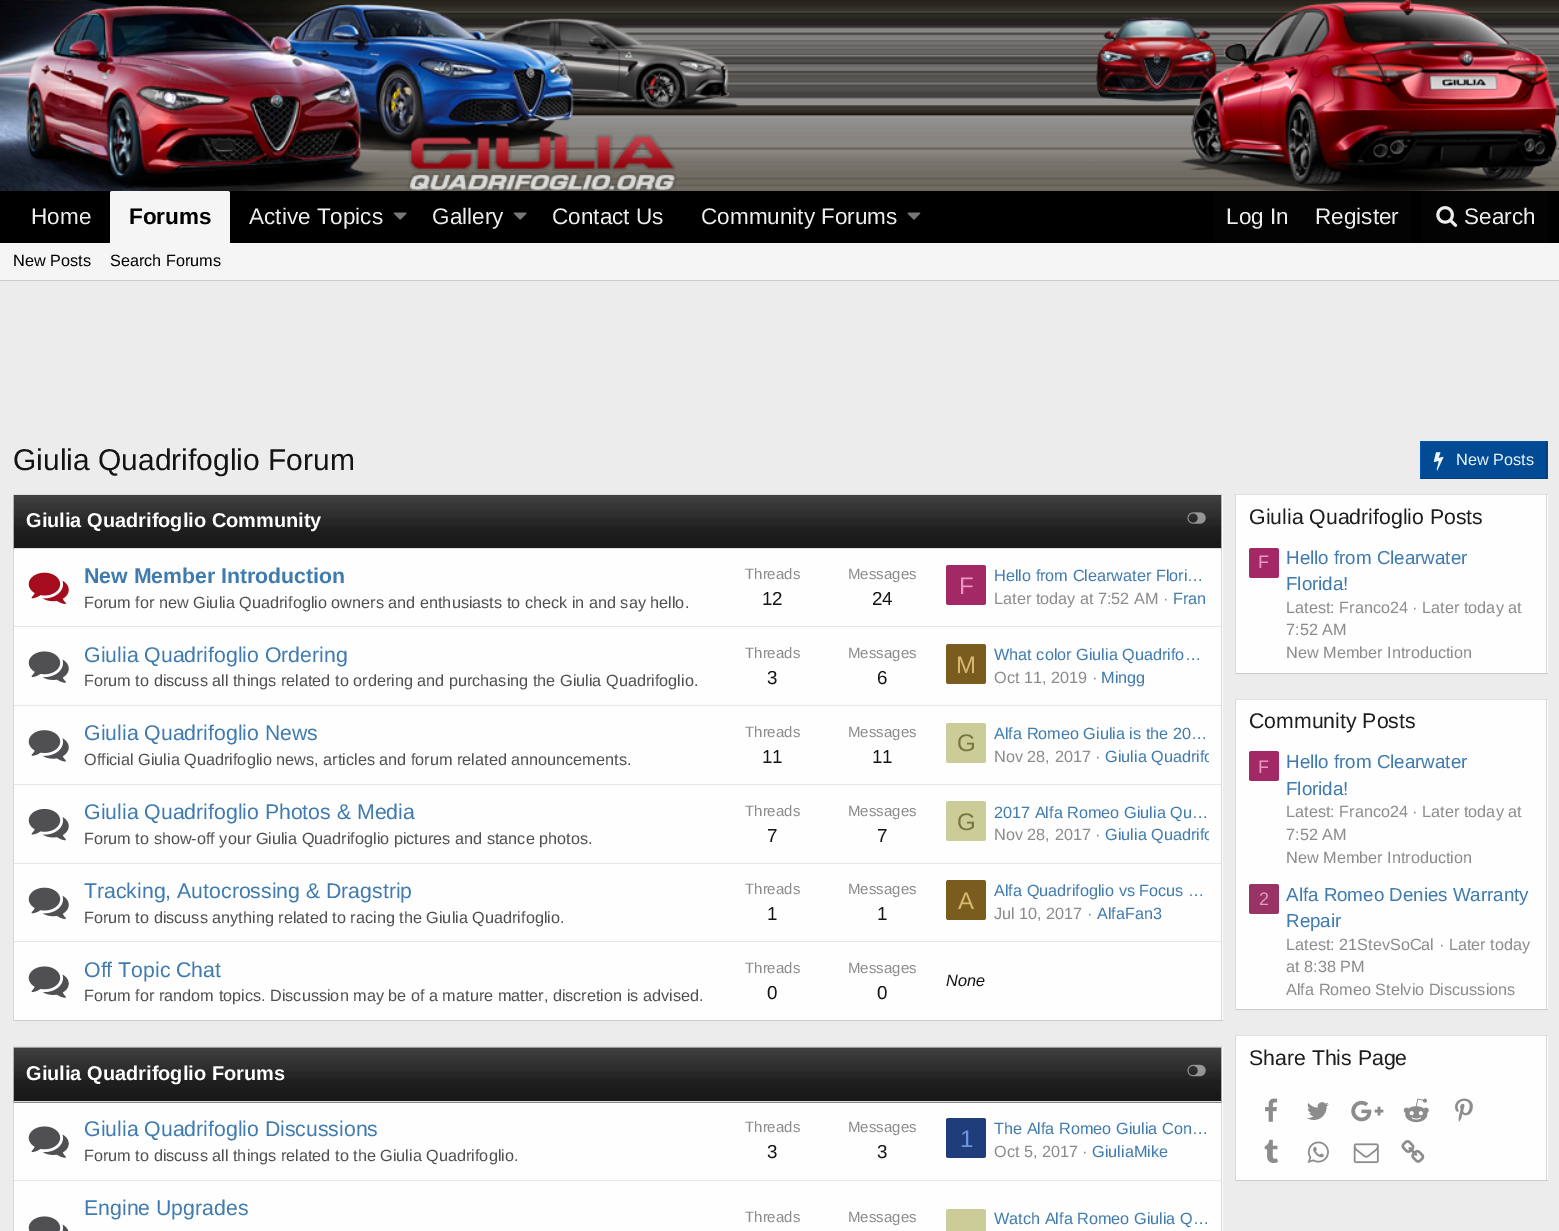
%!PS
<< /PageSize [1559 1231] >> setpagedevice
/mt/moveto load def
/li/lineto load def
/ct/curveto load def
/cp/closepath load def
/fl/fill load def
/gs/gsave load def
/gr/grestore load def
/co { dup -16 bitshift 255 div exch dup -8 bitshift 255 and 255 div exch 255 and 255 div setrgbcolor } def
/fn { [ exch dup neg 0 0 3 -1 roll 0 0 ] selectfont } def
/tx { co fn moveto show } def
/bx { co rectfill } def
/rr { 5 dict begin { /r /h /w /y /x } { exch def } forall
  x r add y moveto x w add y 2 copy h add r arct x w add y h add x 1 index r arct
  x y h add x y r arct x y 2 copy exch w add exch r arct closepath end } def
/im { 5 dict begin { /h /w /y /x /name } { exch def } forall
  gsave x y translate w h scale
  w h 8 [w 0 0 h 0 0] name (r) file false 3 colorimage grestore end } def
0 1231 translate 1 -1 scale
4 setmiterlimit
0 0 1559 1231 16#ECECEC bx
(media/1.raw) 767 0 325 191 im
(media/2.raw) 0 0 768 191 im
(media/3.raw) 1091 0 468 191 im
0 191 1559 52 16#000000 bx
16#F5F5F5 co
112.5 191 mt 227.5 191 li 229 191 230 192 230 193.5 ct 230 243 li 110 243 li 110 193.5 li 110 192 111 191 112.5 191 ct cp fl
(media/4.raw) 393 212 14 8 im
(media/4.raw) 513 212 14 8 im
(media/5.raw) 907 212 14 8 im
1214 191 197 52 16#030303 bx
1301 191 1 52 16#060606 bx
1423 191 125 52 16#030303 bx
(media/6.raw) 1436 206 22 21 im
0 243 1559 37 16#F5F5F5 bx
0 280 1559 1 16#CBCBCB bx
1421 442 127 36 16#004B94 bx
1420 441 128 1 16#0058AE bx
1546 441 1 38 16#003E7B bx
1420 478 128 1 16#003E7B bx
1420 441 1 38 16#0058AE bx
(media/7.raw) 1433 452 11 19 im
14 495 1209 525 16#FEFEFE bx
13 494 1210 1 16#DFDFDF bx
1221 494 1 527 16#D8D8D8 bx
13 1020 1210 1 16#CBCBCB bx
13 494 1 527 16#D8D8D8 bx
(media/8.raw) 13 495 1209 54 im
14 548 1207 1 16#DFDFDF bx
(media/9.raw) 1187 512 19 12 im
(media/10.raw) 28 572 41 33 im
16#A32966 co
946 565 40 40 2.5 rr fl
14 626 1207 1 16#E7E7E7 bx
(media/11.raw) 28 651 41 32 im
16#7A5C1F co
946 644 40 40 2.5 rr fl
14 705 1207 1 16#E7E7E7 bx
(media/12.raw) 28 730 41 32 im
16#CCCC99 co
946 723 40 40 2.5 rr fl
14 784 1207 1 16#E7E7E7 bx
(media/13.raw) 28 808 41 33 im
16#CCCC99 co
946 801 40 40 2.5 rr fl
14 863 1207 1 16#E7E7E7 bx
(media/14.raw) 28 887 41 33 im
16#7A5C1F co
946 880 40 40 2.5 rr fl
14 941 1207 1 16#E7E7E7 bx
(media/11.raw) 28 966 41 32 im
14 1047 1209 184 16#FEFEFE bx
13 1046 1210 1 16#DFDFDF bx
1221 1046 1 185 16#D8D8D8 bx
13 1046 1 185 16#D8D8D8 bx
14 1102 1207 1 16#EDF6FD bx
(media/15.raw) 13 1047 1209 56 im
14 1101 1207 1 16#DFDFDF bx
(media/16.raw) 1187 1064 19 13 im
(media/11.raw) 28 1126 41 32 im
16#1F3D7A co
946 1118 40 40 2.5 rr fl
14 1180 1207 1 16#E7E7E7 bx
(media/17.raw) 28 1216 41 15 im
16#CCCC99 co
946 1209 40 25 2.5 rr fl
1236 495 312 178 16#FEFEFE bx
1235 494 313 1 16#DFDFDF bx
1546 494 1 180 16#D8D8D8 bx
1235 673 313 1 16#CBCBCB bx
1235 494 1 180 16#D8D8D8 bx
16#A32966 co
1249 548 30 30 2.5 rr fl
1236 700 312 309 16#FEFEFE bx
1235 699 313 1 16#DFDFDF bx
1546 699 1 311 16#D8D8D8 bx
1235 1009 313 1 16#CBCBCB bx
1235 699 1 311 16#D8D8D8 bx
16#A32966 co
1249 751 30 30 2.5 rr fl
16#993366 co
1249 884 30 30 2.5 rr fl
1236 1036 312 144 16#FEFEFE bx
1235 1035 313 1 16#DFDFDF bx
1546 1035 1 146 16#D8D8D8 bx
1235 1180 313 1 16#CBCBCB bx
1235 1035 1 146 16#D8D8D8 bx
(media/18.raw) 1265 1098 13 24 im
(media/19.raw) 1307 1102 22 18 im
(media/20.raw) 1351 1100 33 22 im
(media/21.raw) 1403 1098 26 25 im
(media/22.raw) 1455 1098 18 24 im
(media/23.raw) 1264 1139 14 24 im
(media/24.raw) 1307 1141 22 22 im
(media/25.raw) 1353 1143 26 21 im
(media/26.raw) 1401 1140 24 23 im
(Home) 31 224 /LiberationSans-Regular 22.5 16#EEEEEE tx
(Forums) 129 224 /LiberationSans-Bold 22.5 16#000000 tx
(Active Topics) 249 224 /LiberationSans-Regular 22.5 16#EEEEEE tx
(Gallery) 432 224 /LiberationSans-Regular 22.5 16#EEEEEE tx
(Contact Us) 552 224 /LiberationSans-Regular 22.5 16#EEEEEE tx
(Community Forums) 701 224 /LiberationSans-Regular 22.5 16#EEEEEE tx
(Log In) 1226 224 /LiberationSans-Regular 22.5 16#EEEEEE tx
(Register) 1315 224 /LiberationSans-Regular 22.5 16#EEEEEE tx
(Search) 1464 224 /LiberationSans-Regular 22.5 16#EEEEEE tx
(New Posts) 13 266 /LiberationSans-Regular 16.25 16#000000 tx
(Search Forums) 110 266 /LiberationSans-Regular 16.25 16#000000 tx
(Giulia Quadrifoglio Forum) 13 470 /LiberationSans-Regular 30 16#141414 tx
(New Posts) 1456 465 /LiberationSans-Regular 16.25 16#EDF6FD tx
(Giulia Quadrifoglio Community) 26 527 /LiberationSans-Bold 20 16#FFFFFF tx
(New Member Introduction) 84 583 /LiberationSans-Bold 21.25 16#3F7BAE tx
(Forum for new Giulia Quadrifoglio owners and enthusiasts to check in and say hello.) 84 608 /LiberationSans-Regular 16.25 16#505050 tx
(Threads) 745 579 /LiberationSans-Regular 15 16#8C8C8C tx
(12) 762 605 /LiberationSans-Regular 18.75 16#141414 tx
(Messages) 848 579 /LiberationSans-Regular 15 16#8C8C8C tx
(24) 872 605 /LiberationSans-Regular 18.75 16#141414 tx
(Hello from Clearwater Flori…) 994 581 /LiberationSans-Regular 16.25 16#3F7BAE tx
(F) 959 594 /LiberationSans-Regular 24 16#E699BF tx
(Later today at 7:52 AM ·) 994 604 /LiberationSans-Regular 16.25 16#8C8C8C tx
(Fran) 1173 604 /LiberationSans-Regular 16.25 16#3F7BAE tx
(Giulia Quadrifoglio Ordering) 84 662 /LiberationSans-Regular 21.25 16#3F7BAE tx
(Forum to discuss all things related to ordering and purchasing the Giulia Quadrifoglio.) 84 686 /LiberationSans-Regular 16.25 16#505050 tx
(Threads) 745 658 /LiberationSans-Regular 15 16#8C8C8C tx
(3) 767 684 /LiberationSans-Regular 18.75 16#141414 tx
(Messages) 848 658 /LiberationSans-Regular 15 16#8C8C8C tx
(6) 877 684 /LiberationSans-Regular 18.75 16#141414 tx
(M) 956 673 /LiberationSans-Regular 24 16#DBB870 tx
(What color Giulia Quadrifo…) 994 660 /LiberationSans-Regular 16.25 16#3F7BAE tx
(Oct 11, 2019 ·) 994 683 /LiberationSans-Regular 16.25 16#8C8C8C tx
(Mingg) 1101 683 /LiberationSans-Regular 16.25 16#3F7BAE tx
(Giulia Quadrifoglio News) 84 740 /LiberationSans-Regular 21.25 16#3F7BAE tx
(Official Giulia Quadrifoglio news, articles and forum related announcements.) 84 765 /LiberationSans-Regular 16.25 16#505050 tx
(Threads) 745 737 /LiberationSans-Regular 15 16#8C8C8C tx
(11) 762 763 /LiberationSans-Regular 18.75 16#141414 tx
(Messages) 848 737 /LiberationSans-Regular 15 16#8C8C8C tx
(11) 872 763 /LiberationSans-Regular 18.75 16#141414 tx
(G) 957 751 /LiberationSans-Regular 24 16#77773C tx
(Alfa Romeo Giulia is the 20…) 994 739 /LiberationSans-Regular 16.25 16#3F7BAE tx
(Nov 28, 2017 ·) 994 762 /LiberationSans-Regular 16.25 16#8C8C8C tx
gs
994 745 215 24 rectclip
(Giulia Quadrifo) 1105 762 /LiberationSans-Regular 16.25 16#3F7BAE tx
gr
(Giulia Quadrifoglio Photos & Media) 84 819 /LiberationSans-Regular 21.25 16#3F7BAE tx
(Forum to show-off your Giulia Quadrifoglio pictures and stance photos.) 84 844 /LiberationSans-Regular 16.25 16#505050 tx
(Threads) 745 816 /LiberationSans-Regular 15 16#8C8C8C tx
(7) 767 842 /LiberationSans-Regular 18.75 16#141414 tx
(Messages) 848 816 /LiberationSans-Regular 15 16#8C8C8C tx
(7) 877 842 /LiberationSans-Regular 18.75 16#141414 tx
(G) 957 830 /LiberationSans-Regular 24 16#77773C tx
(2017 Alfa Romeo Giulia Qu…) 994 818 /LiberationSans-Regular 16.25 16#3F7BAE tx
(Nov 28, 2017 ·) 994 840 /LiberationSans-Regular 16.25 16#8C8C8C tx
gs
994 824 215 22 rectclip
(Giulia Quadrifo) 1105 840 /LiberationSans-Regular 16.25 16#3F7BAE tx
gr
(Tracking, Autocrossing & Dragstrip) 84 898 /LiberationSans-Regular 21.25 16#3F7BAE tx
(Forum to discuss anything related to racing the Giulia Quadrifoglio.) 84 923 /LiberationSans-Regular 16.25 16#505050 tx
(Threads) 745 894 /LiberationSans-Regular 15 16#8C8C8C tx
(1) 767 920 /LiberationSans-Regular 18.75 16#141414 tx
(Messages) 848 894 /LiberationSans-Regular 15 16#8C8C8C tx
(1) 877 920 /LiberationSans-Regular 18.75 16#141414 tx
(A) 958 909 /LiberationSans-Regular 24 16#DBB870 tx
(Alfa Quadrifoglio vs Focus …) 994 896 /LiberationSans-Regular 16.25 16#3F7BAE tx
(Jul 10, 2017 ·) 994 919 /LiberationSans-Regular 16.25 16#8C8C8C tx
(AlfaFan3) 1097 919 /LiberationSans-Regular 16.25 16#3F7BAE tx
(Off Topic Chat) 84 977 /LiberationSans-Regular 21.25 16#3F7BAE tx
(Forum for random topics. Discussion may be of a mature matter, discretion is advised.) 84 1001 /LiberationSans-Regular 16.25 16#505050 tx
(Threads) 745 973 /LiberationSans-Regular 15 16#8C8C8C tx
(0) 767 999 /LiberationSans-Regular 18.75 16#141414 tx
(Messages) 848 973 /LiberationSans-Regular 15 16#8C8C8C tx
(0) 877 999 /LiberationSans-Regular 18.75 16#141414 tx
(None) 946 986 /LiberationSans-Italic 16.25 16#141414 tx
(Giulia Quadrifoglio Forums) 26 1080 /LiberationSans-Bold 20 16#FFFFFF tx
(Giulia Quadrifoglio Discussions) 84 1136 /LiberationSans-Regular 21.25 16#3F7BAE tx
(Forum to discuss all things related to the Giulia Quadrifoglio.) 84 1161 /LiberationSans-Regular 16.25 16#505050 tx
(Threads) 745 1132 /LiberationSans-Regular 15 16#8C8C8C tx
(3) 767 1158 /LiberationSans-Regular 18.75 16#141414 tx
(Messages) 848 1132 /LiberationSans-Regular 15 16#8C8C8C tx
(3) 877 1158 /LiberationSans-Regular 18.75 16#141414 tx
(The Alfa Romeo Giulia Con…) 994 1134 /LiberationSans-Regular 16.25 16#3F7BAE tx
(1) 960 1147 /LiberationSans-Regular 24 16#7094DB tx
(Oct 5, 2017 ·) 994 1157 /LiberationSans-Regular 16.25 16#8C8C8C tx
(GiuliaMike) 1092 1157 /LiberationSans-Regular 16.25 16#3F7BAE tx
(Engine Upgrades) 84 1215 /LiberationSans-Regular 21.25 16#3F7BAE tx
(Threads) 745 1222 /LiberationSans-Regular 15 16#8C8C8C tx
(Messages) 848 1222 /LiberationSans-Regular 15 16#8C8C8C tx
(Watch Alfa Romeo Giulia Q…) 994 1224 /LiberationSans-Regular 16.25 16#3F7BAE tx
(Giulia Quadrifoglio Posts) 1249 524 /LiberationSans-Regular 21.25 16#1D1D1D tx
(F) 1258 568 /LiberationSans-Regular 18 16#E699BF tx
(Hello from Clearwater) 1286 564 /LiberationSans-Regular 18.75 16#3F7BAE tx
(Florida!) 1286 590 /LiberationSans-Regular 18.75 16#3F7BAE tx
(Latest: Franco24 · Later today at) 1286 613 /LiberationSans-Regular 16.25 16#8C8C8C tx
(7:52 AM) 1286 635 /LiberationSans-Regular 16.25 16#8C8C8C tx
(New Member Introduction) 1286 658 /LiberationSans-Regular 16.25 16#8C8C8C tx
(Community Posts) 1249 728 /LiberationSans-Regular 21.25 16#1D1D1D tx
(F) 1258 773 /LiberationSans-Regular 18 16#E699BF tx
(Hello from Clearwater) 1286 768 /LiberationSans-Regular 18.75 16#3F7BAE tx
(Florida!) 1286 795 /LiberationSans-Regular 18.75 16#3F7BAE tx
(Latest: Franco24 · Later today at) 1286 817 /LiberationSans-Regular 16.25 16#8C8C8C tx
(7:52 AM) 1286 840 /LiberationSans-Regular 16.25 16#8C8C8C tx
(New Member Introduction) 1286 863 /LiberationSans-Regular 16.25 16#8C8C8C tx
(2) 1259 905 /LiberationSans-Regular 18 16#DF9FBF tx
(Alfa Romeo Denies Warranty) 1286 901 /LiberationSans-Regular 18.75 16#3F7BAE tx
(Repair) 1286 927 /LiberationSans-Regular 18.75 16#3F7BAE tx
(Latest: 21StevSoCal · Later today) 1286 950 /LiberationSans-Regular 16.25 16#8C8C8C tx
(at 8:38 PM) 1286 972 /LiberationSans-Regular 16.25 16#8C8C8C tx
(Alfa Romeo Stelvio Discussions) 1286 995 /LiberationSans-Regular 16.25 16#8C8C8C tx
(Share This Page) 1249 1065 /LiberationSans-Regular 21.25 16#1D1D1D tx
showpage
